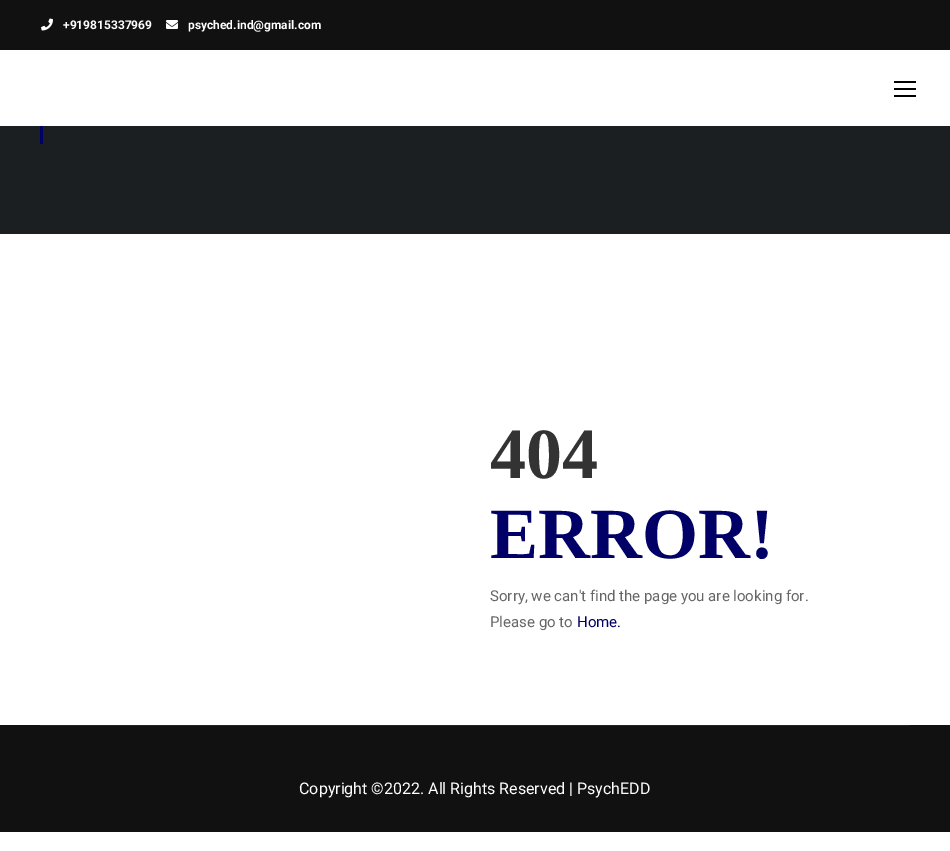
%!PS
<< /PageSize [950 851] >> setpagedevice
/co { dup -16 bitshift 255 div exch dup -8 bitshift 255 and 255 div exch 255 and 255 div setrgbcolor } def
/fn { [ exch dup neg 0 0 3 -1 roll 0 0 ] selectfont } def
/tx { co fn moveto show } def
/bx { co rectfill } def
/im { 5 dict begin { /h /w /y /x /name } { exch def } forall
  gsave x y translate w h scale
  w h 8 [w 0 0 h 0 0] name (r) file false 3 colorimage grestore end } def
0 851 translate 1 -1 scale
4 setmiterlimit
0 0 950 851 16#FFFFFF bx
0 0 950 50 16#111111 bx
(media/1.raw) 41 18 12 13 im
(media/2.raw) 166 20 12 9 im
894 81 22 2 16#000000 bx
894 88 22 2 16#000000 bx
894 95 22 2 16#000000 bx
0 126 950 108 16#1C1F22 bx
40 126 3 18 16#000066 bx
0 725 950 107 16#111111 bx
40 725 870 1 16#222222 bx
(+919815337969) 63 29 /Roboto-Bold 12 16#FFFFFF tx
(psyched.ind@gmail.com) 188 29 /Roboto-Bold 12 16#FFFFFF tx
(404) 490 478 /LiberationSerif-Bold 72 16#333333 tx
(ERROR!) 490 558 /LiberationSerif-Bold 72 16#000066 tx
(Sorry, we can't find the page you are looking for.) 490 601 /Roboto-Regular 15 16#666666 tx
(Please go to) 490 627 /Roboto-Regular 15 16#666666 tx
(Home.) 577 627 /Roboto-Regular 15 16#000066 tx
(Copyright ©2022. All Rights Reserved | PsychEDD) 299 794 /Roboto-Regular 16 16#FFFFFF tx
showpage
